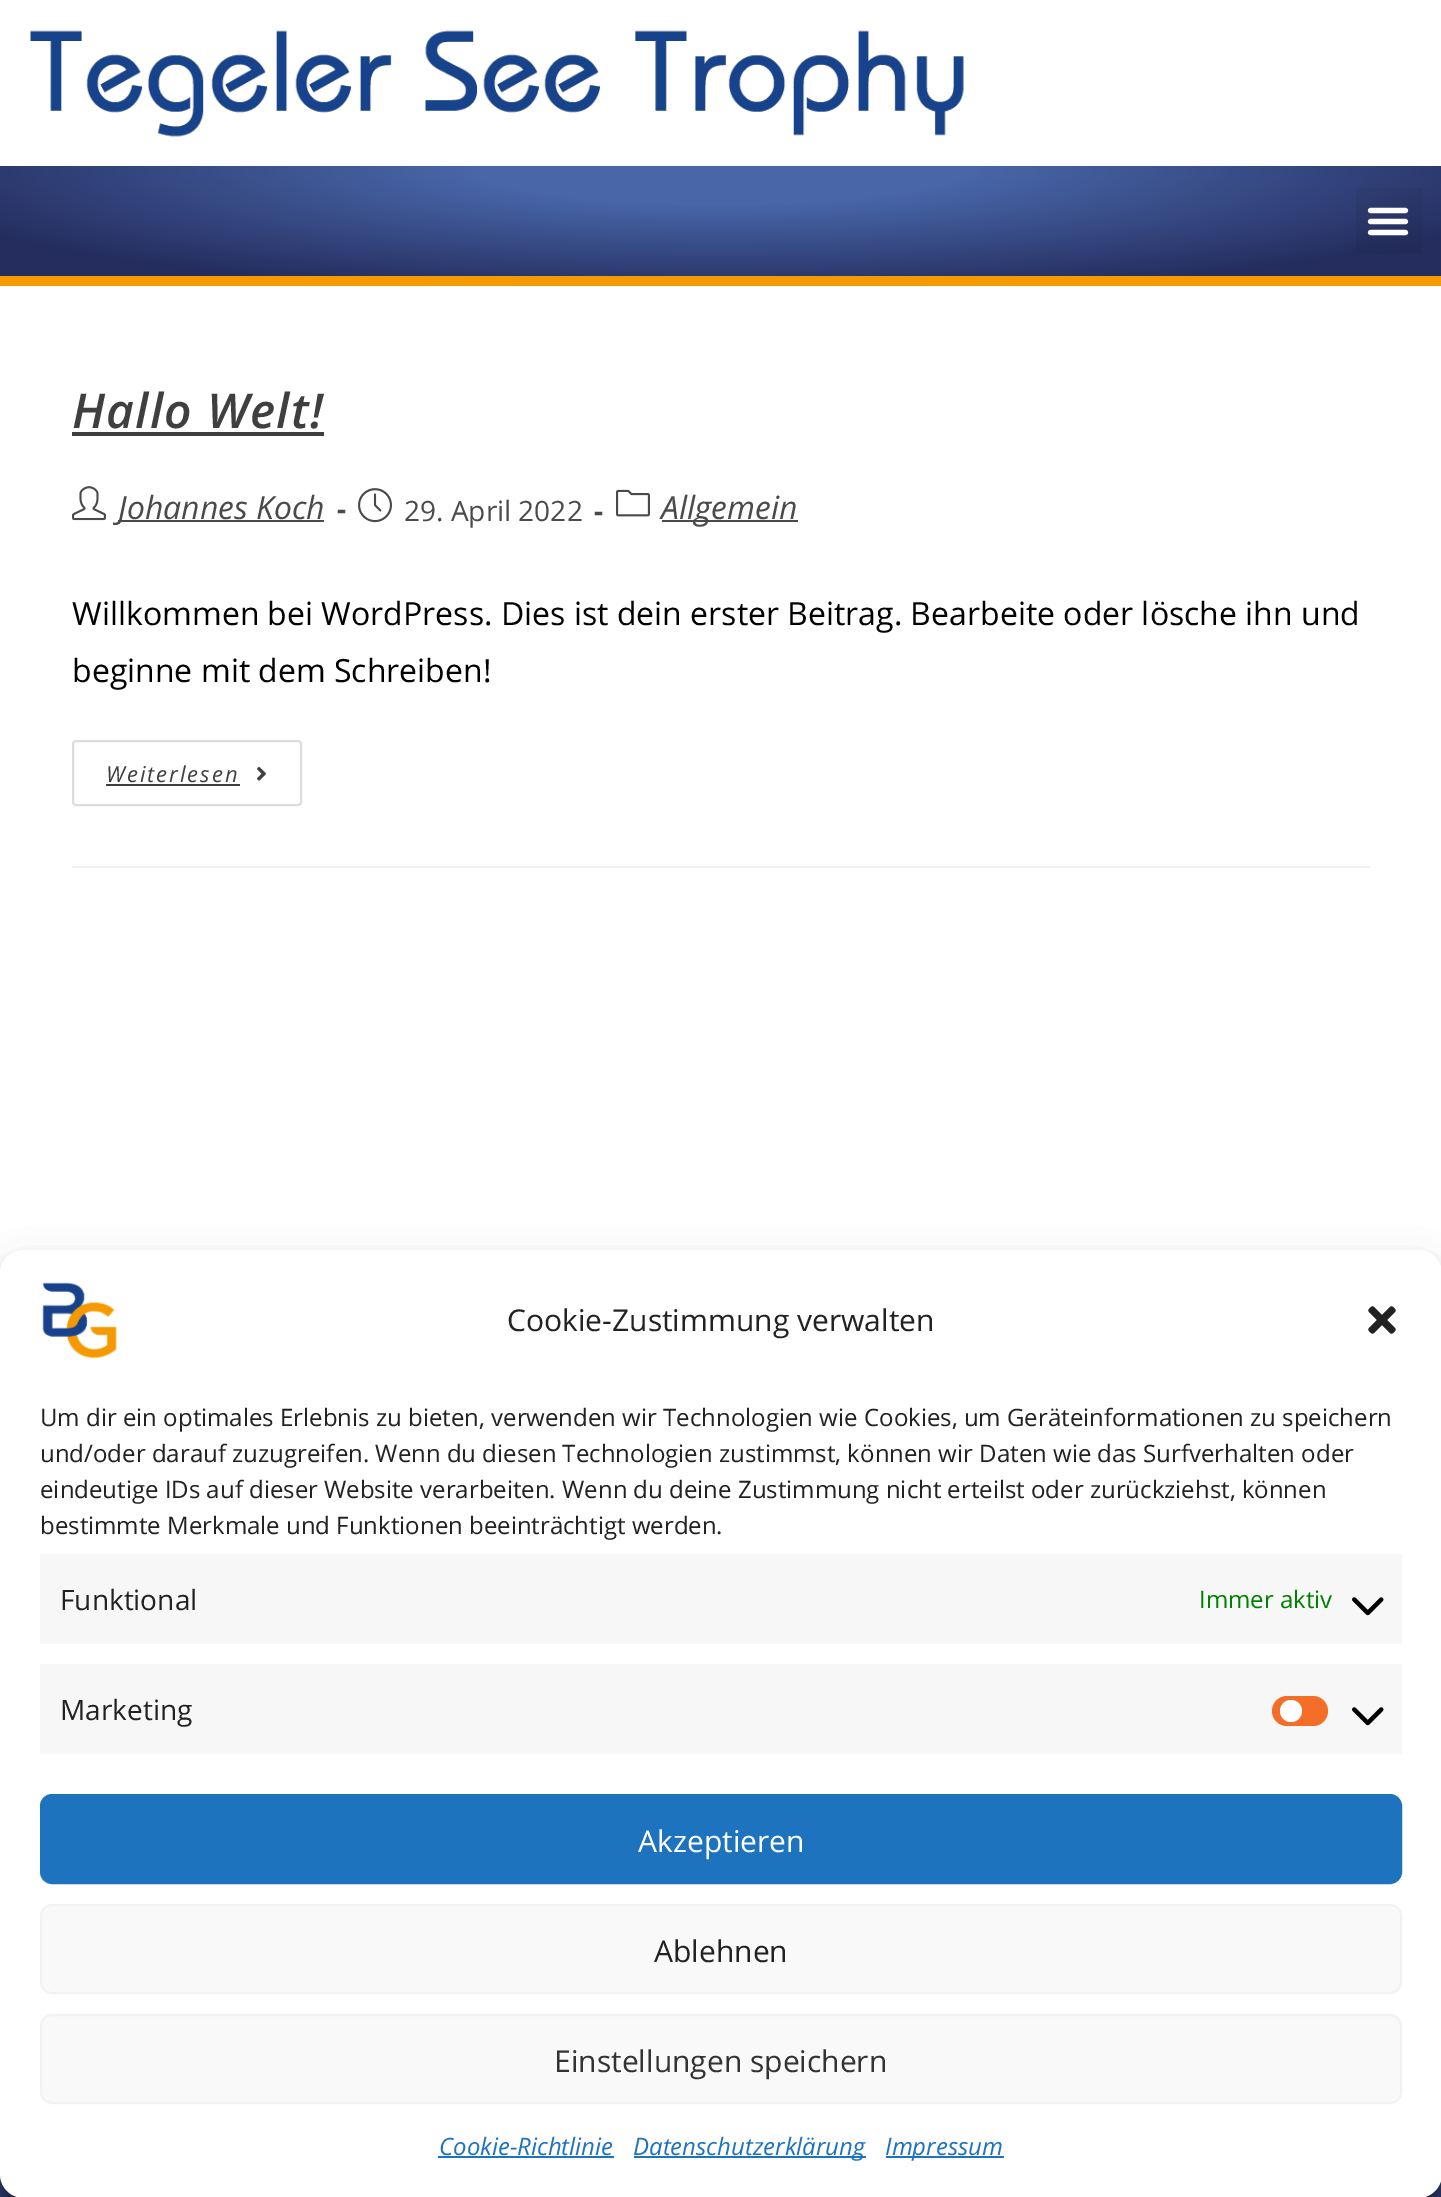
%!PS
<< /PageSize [1441 2197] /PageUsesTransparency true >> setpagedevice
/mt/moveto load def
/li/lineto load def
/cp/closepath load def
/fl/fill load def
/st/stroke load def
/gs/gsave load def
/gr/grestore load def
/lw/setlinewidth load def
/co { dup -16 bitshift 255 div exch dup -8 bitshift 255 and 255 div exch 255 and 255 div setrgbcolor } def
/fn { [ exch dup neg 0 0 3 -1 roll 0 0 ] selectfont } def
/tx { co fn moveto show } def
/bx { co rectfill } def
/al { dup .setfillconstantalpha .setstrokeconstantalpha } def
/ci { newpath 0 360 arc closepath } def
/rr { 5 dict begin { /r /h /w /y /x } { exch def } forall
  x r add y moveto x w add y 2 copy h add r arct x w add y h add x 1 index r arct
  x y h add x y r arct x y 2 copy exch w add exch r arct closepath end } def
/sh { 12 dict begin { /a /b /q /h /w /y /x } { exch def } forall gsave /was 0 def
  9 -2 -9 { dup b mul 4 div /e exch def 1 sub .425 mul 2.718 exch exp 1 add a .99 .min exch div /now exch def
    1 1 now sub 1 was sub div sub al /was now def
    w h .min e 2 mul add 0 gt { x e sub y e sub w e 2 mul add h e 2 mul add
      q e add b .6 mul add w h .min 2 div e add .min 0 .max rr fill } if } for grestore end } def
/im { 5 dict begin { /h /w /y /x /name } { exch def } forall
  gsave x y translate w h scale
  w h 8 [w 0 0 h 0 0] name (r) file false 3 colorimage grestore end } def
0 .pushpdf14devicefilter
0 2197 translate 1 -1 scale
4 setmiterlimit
0 0 1441 2197 16#FFFFFF bx
(media/1.raw) 30 30 934 107 im
0 276 1441 10 16#F59A00 bx
gs 0 166 mt 1441 166 li 1441 276 li 0 276 li cp clip newpath 721 166 translate 1020 156 scale
<< /ShadingType 3 /ColorSpace /DeviceRGB /Coords [0 0 0 0 0 1] /Extend [true true] /Function << /FunctionType 3 /Domain [0 1] /Functions [<< /FunctionType 2 /Domain [0 1] /C0 [.282 .4 .659] /C1 [.282 .4 .659] /N 1 >> << /FunctionType 2 /Domain [0 1] /C0 [.282 .4 .659] /C1 [.141 .176 .365] /N 1 >> << /FunctionType 2 /Domain [0 1] /C0 [.141 .176 .365] /C1 [.141 .176 .365] /N 1 >>] /Bounds [.25 .85] /Encode [0 1 0 1 0 1] >> >> shfill gr
0.05 al
1356 188 66 66 16#000000 bx
1 al
(media/2.raw) 1367 207 42 29 im
72 866 1298 2 16#F1F1F1 bx
72 432 252 4 16#3F3F3F bx
(media/3.raw) 72 486 34 35 im
118 520 206 2 16#4A4A4A bx
(media/4.raw) 358 488 34 35 im
(media/5.raw) 616 489 34 28 im
662 520 136 2 16#4A4A4A bx
16#DDDDDD co
2 lw
73 741 228 64 3 rr st
106 784 134 2 16#3F3F3F bx
(media/6.raw) 257 766 9 15 im
gs 0 2174 mt 1441 2174 li 1441 2197 li 0 2197 li cp clip newpath 721 2198 translate 1020 209 scale
<< /ShadingType 3 /ColorSpace /DeviceRGB /Coords [0 0 0 0 0 1] /Extend [true true] /Function << /FunctionType 3 /Domain [0 1] /Functions [<< /FunctionType 2 /Domain [0 1] /C0 [.282 .4 .659] /C1 [.282 .4 .659] /N 1 >> << /FunctionType 2 /Domain [0 1] /C0 [.282 .4 .659] /C1 [.141 .176 .365] /N 1 >> << /FunctionType 2 /Domain [0 1] /C0 [.141 .176 .365] /C1 [.141 .176 .365] /N 1 >>] /Bounds [.2 .85] /Encode [0 1 0 1 0 1] >> >> shfill gr
16#000000 co
0 1262 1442 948 24 6 .23 sh
0 1270 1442 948 24 20 .19 sh
16#FFFFFF co
0 1250 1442 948 24 rr fl
(media/7.raw) 42 1282 75 77 im
(media/8.raw) 1368 1306 28 28 im
40 1554 1362 90 16#F7F7F7 bx
(media/9.raw) 1352 1597 32 19 im
40 1664 1362 90 16#F7F7F7 bx
16#F56E28 co
1272 1696 56 30 15 rr fl
16#FFFFFF co
1291 1711 11 ci fl
(media/9.raw) 1352 1707 32 19 im
16#1E73BE co
41 1795 1360 88 11 rr gs fl gr
st
16#F9F9F9 co
41 1905 1360 88 11 rr gs fl gr
16#F2F2F2 co
st
16#F9F9F9 co
41 2015 1360 88 11 rr gs fl gr
16#F2F2F2 co
st
438 2156 176 2 16#1E73BE bx
634 2156 232 2 16#1E73BE bx
886 2156 118 2 16#1E73BE bx
/OpenSans-SemiBoldItalic 48 fn
16#3F3F3F co
72 428 mt 1.25 0 (Hallo Welt!) ashow
(Johannes Koch) 118 519 /OpenSans-Italic 32 16#4A4A4A tx
(-) 337 519 /OpenSans-Bold 28 16#4A4A4A tx
(29. April 2022) 404 521 /OpenSans-Regular 28 16#4A4A4A tx
(-) 594 521 /OpenSans-Bold 28 16#4A4A4A tx
(Allgemein) 661 519 /OpenSans-Italic 32 16#4A4A4A tx
(Willkommen bei WordPress. Dies ist dein erster Beitrag. Bearbeite oder lösche ihn und) 72 625 /OpenSans-Regular 32 16#000000 tx
(beginne mit dem Schreiben!) 72 682 /OpenSans-Regular 32 16#000000 tx
/OpenSans-Italic 22 fn
16#3F3F3F co
106 782 mt 2 0 (Weiterlesen) ashow
(Cookie-Zustimmung verwalten) 507 1331 /OpenSans-Regular 30 16#222222 tx
(Um dir ein optimales Erlebnis zu bieten, verwenden wir Technologien wie Cookies, um Geräteinformationen zu speichern) 40 1426 /OpenSans-Regular 24 16#222222 tx
(und/oder darauf zuzugreifen. Wenn du diesen Technologien zustimmst, können wir Daten wie das Surfverhalten oder) 40 1462 /OpenSans-Regular 24 16#222222 tx
(eindeutige IDs auf dieser Website verarbeiten. Wenn du deine Zustimmung nicht erteilst oder zurückziehst, können) 40 1498 /OpenSans-Regular 24 16#222222 tx
(bestimmte Merkmale und Funktionen beeinträchtigt werden.) 40 1534 /OpenSans-Regular 24 16#222222 tx
(Funktional) 60 1610 /OpenSans-Regular 28 16#222222 tx
(Immer aktiv) 1199 1608 /OpenSans-Regular 24 16#008000 tx
(Marketing) 60 1720 /OpenSans-Regular 28 16#222222 tx
(Akzeptieren) 638 1852 /OpenSans-Regular 30 16#FFFFFF tx
(Ablehnen) 654 1962 /OpenSans-Regular 30 16#222222 tx
(Einstellungen speichern) 554 2072 /OpenSans-Regular 30 16#333333 tx
(Cookie-Richtlinie) 439 2155 /OpenSans-Italic 24 16#1E73BE tx
(Datenschutzerklärung) 633 2155 /OpenSans-Italic 24 16#1E73BE tx
(Impressum) 885 2155 /OpenSans-Italic 24 16#1E73BE tx
.poppdf14devicefilter showpage
